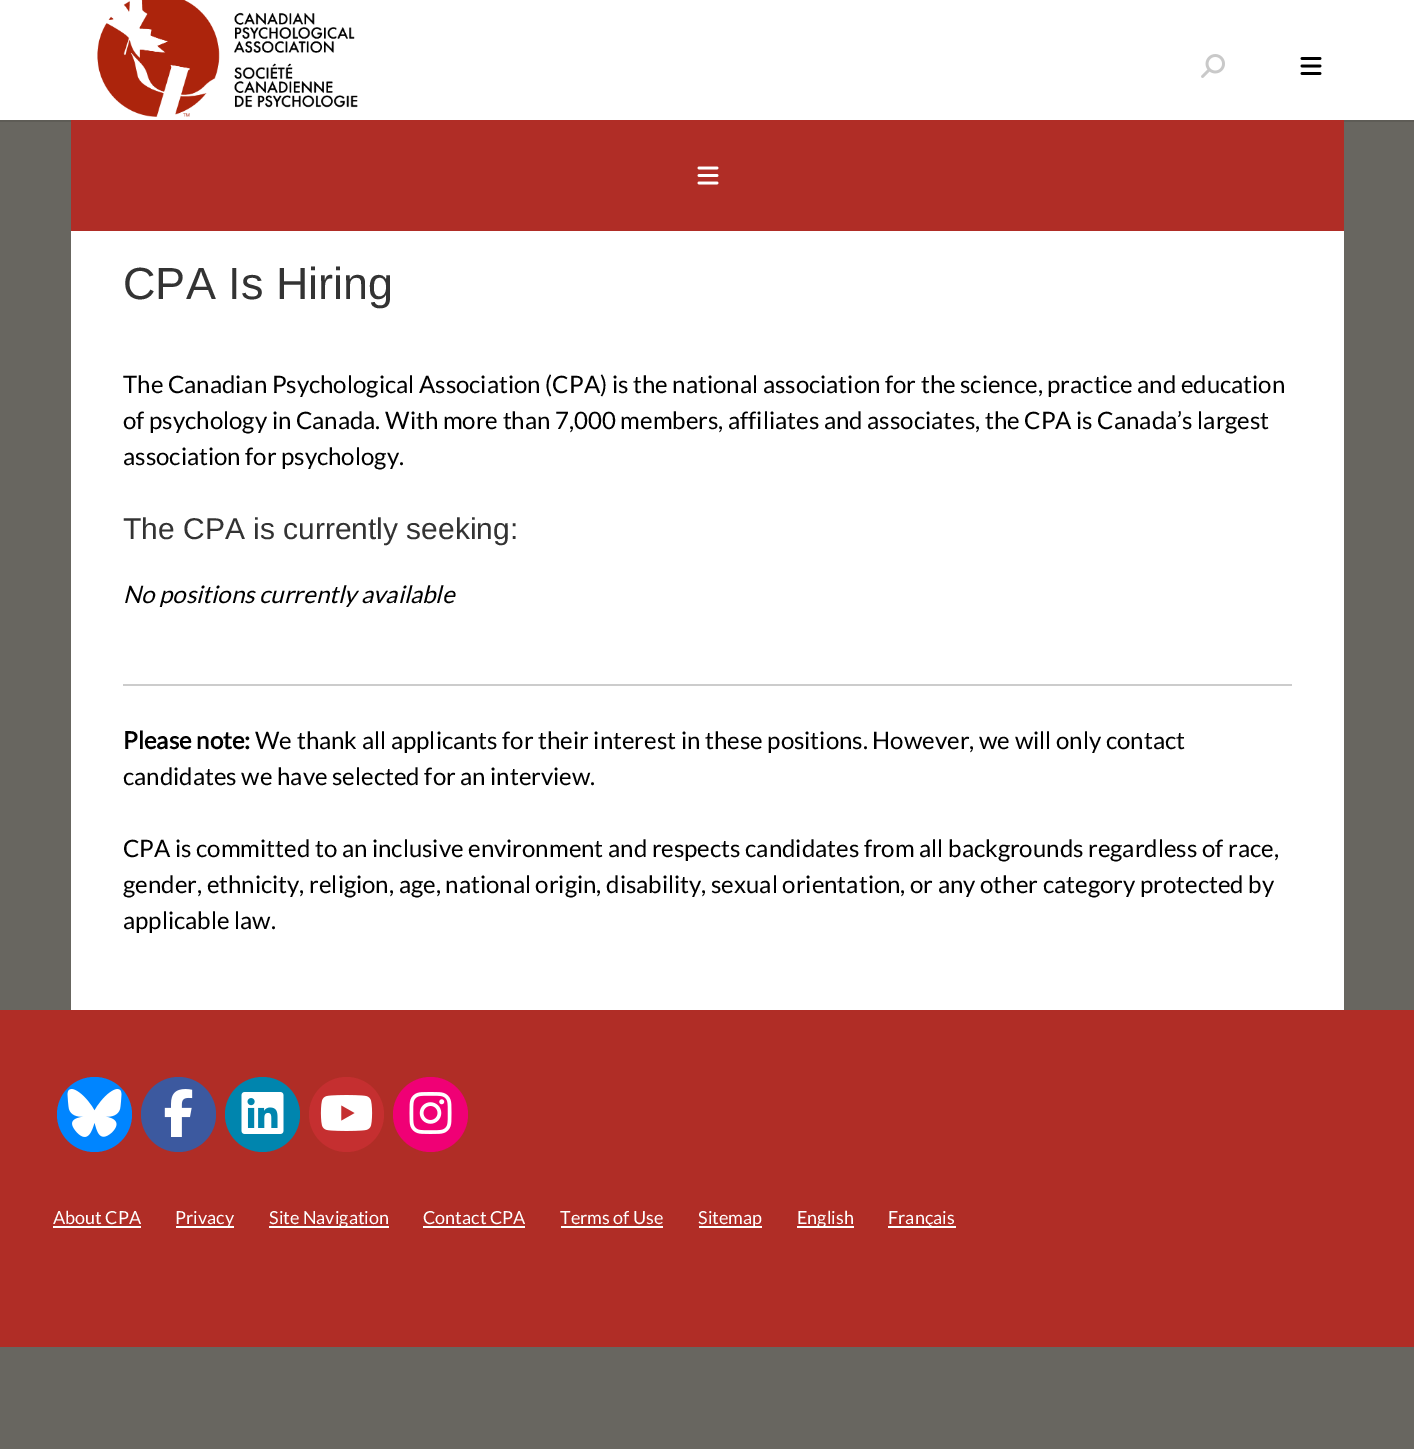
%!PS
<< /PageSize [1414 1449] >> setpagedevice
/mt/moveto load def
/li/lineto load def
/cp/closepath load def
/fl/fill load def
/co { dup -16 bitshift 255 div exch dup -8 bitshift 255 and 255 div exch 255 and 255 div setrgbcolor } def
/fn { [ exch dup neg 0 0 3 -1 roll 0 0 ] selectfont } def
/tx { co fn moveto show } def
/bx { co rectfill } def
/ci { newpath 0 360 arc closepath } def
/im { 5 dict begin { /h /w /y /x /name } { exch def } forall
  gsave x y translate w h scale
  w h 8 [w 0 0 h 0 0] name (r) file false 3 colorimage grestore end } def
0 1449 translate 1 -1 scale
4 setmiterlimit
0 0 1414 1449 16#686660 bx
16#5E5C56 co
0 120 mt 0 122 li 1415 122 li 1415 2 li 1414 2 li 1414 120 li cp fl
0 0 1414 120 16#FFFFFF bx
(media/1.raw) 97 0 261 117 im
(media/2.raw) 1201 54 24 24 im
(media/3.raw) 1300 57 22 18 im
71 231 1273 779 16#FFFFFF bx
71 120 1273 111 16#B02D26 bx
(media/4.raw) 697 166 22 19 im
123 684 1169 2 16#CCCCCC bx
0 1010 1414 337 16#B02D26 bx
16#0085FF co
94.5 1114.5 37.5 ci fl
(media/5.raw) 67 1089 55 48 im
16#3C599F co
178.5 1114.5 37.5 ci fl
(media/6.raw) 164 1089 29 48 im
16#0085AE co
262.5 1114.5 37.5 ci fl
(media/7.raw) 241 1092 43 42 im
16#C52F30 co
346.5 1114.5 37.5 ci fl
(media/8.raw) 320 1095 53 36 im
16#F00075 co
430.5 1114.5 37.5 ci fl
(media/9.raw) 409 1092 43 42 im
53 1226 88 2 16#FFFFFF bx
176 1226 58 2 16#FFFFFF bx
269 1226 120 2 16#FFFFFF bx
423 1226 102 2 16#FFFFFF bx
561 1226 102 2 16#FFFFFF bx
699 1226 63 2 16#FFFFFF bx
797 1226 57 2 16#FFFFFF bx
888 1226 68 2 16#FFFFFF bx
(CPA Is Hiring) 123 299 /LiberationSans-Regular 45 16#333333 tx
(The Canadian Psychological Association \(CPA\) is the national association for the science, practice and education) 123 393 /Lato-Regular 24 16#000000 tx
(of psychology in Canada. With more than 7,000 members, affiliates and associates, the CPA is Canada’s largest) 123 429 /Lato-Regular 24 16#000000 tx
(association for psychology.) 123 465 /Lato-Regular 24 16#000000 tx
(The CPA is currently seeking:) 123 539 /LiberationSans-Regular 30 16#333333 tx
(No positions currently available) 123 603 /Lato-Italic 24 16#000000 tx
(Please note:) 123 749 /Lato-Bold 24 16#000000 tx
(We thank all applicants for their interest in these positions. However, we will only contact) 255 749 /Lato-Regular 24 16#000000 tx
(candidates we have selected for an interview.) 123 785 /Lato-Regular 24 16#000000 tx
(CPA is committed to an inclusive environment and respects candidates from all backgrounds regardless of race,) 123 857 /Lato-Regular 24 16#000000 tx
(gender, ethnicity, religion, age, national origin, disability, sexual orientation, or any other category protected by) 123 893 /Lato-Regular 24 16#000000 tx
(applicable law.) 123 929 /Lato-Regular 24 16#000000 tx
(About CPA) 53 1224 /Lato-Regular 18 16#FFFFFF tx
(Privacy) 175 1224 /Lato-Regular 18 16#FFFFFF tx
(Site Navigation) 269 1224 /Lato-Regular 18 16#FFFFFF tx
(Contact CPA) 423 1224 /Lato-Regular 18 16#FFFFFF tx
(Terms of Use) 560 1224 /Lato-Regular 18 16#FFFFFF tx
(Sitemap) 698 1224 /Lato-Regular 18 16#FFFFFF tx
(English) 797 1224 /Lato-Regular 18 16#FFFFFF tx
(Français) 888 1224 /Lato-Regular 18 16#FFFFFF tx
showpage
